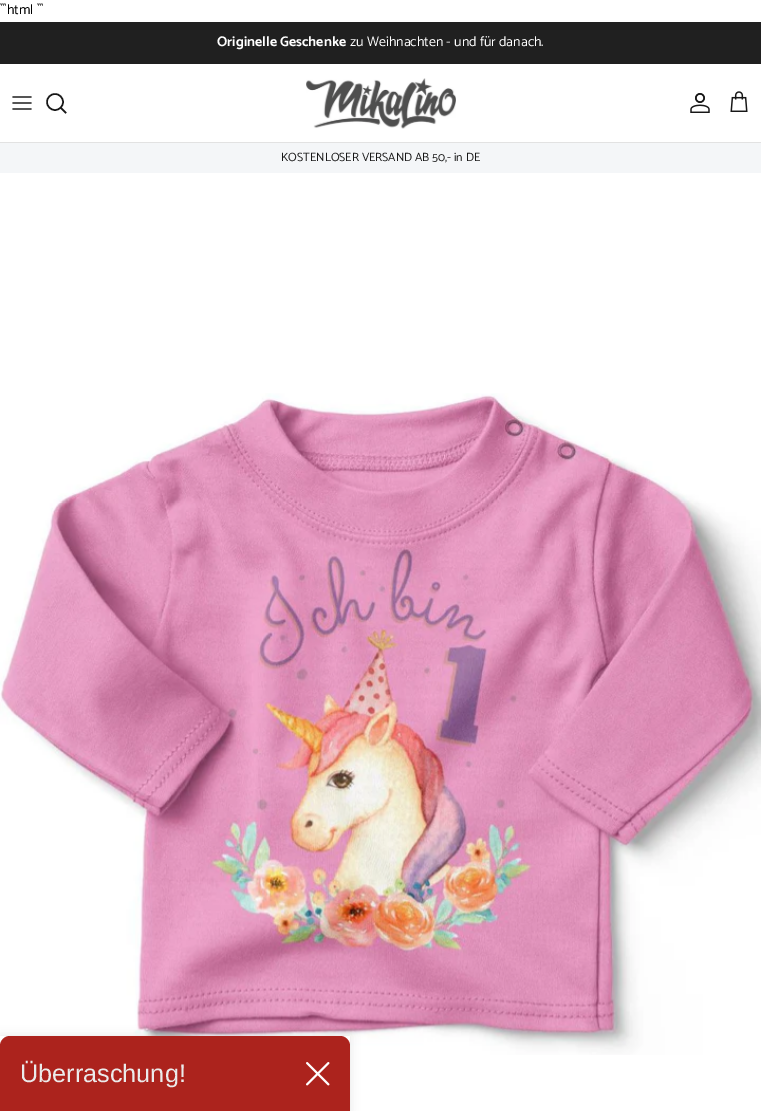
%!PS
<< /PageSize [761 1111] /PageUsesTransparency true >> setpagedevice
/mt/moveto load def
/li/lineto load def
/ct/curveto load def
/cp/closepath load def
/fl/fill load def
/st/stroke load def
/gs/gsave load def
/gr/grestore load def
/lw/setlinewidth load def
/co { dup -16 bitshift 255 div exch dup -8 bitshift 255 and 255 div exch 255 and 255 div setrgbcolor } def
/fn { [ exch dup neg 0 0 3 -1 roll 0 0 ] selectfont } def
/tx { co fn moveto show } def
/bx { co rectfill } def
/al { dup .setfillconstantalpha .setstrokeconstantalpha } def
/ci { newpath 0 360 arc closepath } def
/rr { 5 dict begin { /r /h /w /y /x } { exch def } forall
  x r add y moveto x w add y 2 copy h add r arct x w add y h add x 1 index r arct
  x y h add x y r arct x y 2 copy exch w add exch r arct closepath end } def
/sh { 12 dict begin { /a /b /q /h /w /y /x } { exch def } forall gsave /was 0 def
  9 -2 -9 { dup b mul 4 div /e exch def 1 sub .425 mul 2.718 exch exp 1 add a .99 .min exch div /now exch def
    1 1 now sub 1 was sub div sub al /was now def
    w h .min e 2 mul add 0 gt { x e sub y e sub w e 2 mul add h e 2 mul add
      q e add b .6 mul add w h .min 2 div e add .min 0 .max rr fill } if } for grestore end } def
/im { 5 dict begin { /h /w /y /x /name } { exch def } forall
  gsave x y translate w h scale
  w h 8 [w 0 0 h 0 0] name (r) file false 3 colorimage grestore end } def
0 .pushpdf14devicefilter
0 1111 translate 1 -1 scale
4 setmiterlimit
0 0 761 1111 16#FFFFFF bx
0 22 761 42 16#202020 bx
0 142 761 1 16#E2E2E2 bx
(media/1.raw) 12 96 20 14 im
16#171717 co
1.5 lw
55 102 8 ci st
2 setlinecap
61 108 mt 65.5 112.5 li st
(media/2.raw) 306 78 150 51 im
(media/3.raw) 690 93 20 20 im
(media/4.raw) 730 91 18 21 im
0 143 761 30 16#F4F6F8 bx
(media/5.raw) 0 393 761 662 im
gs
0 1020 mt 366 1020 li 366 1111 li 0 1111 li cp 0 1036 mt 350 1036 li 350 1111 li 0 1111 li cp eoclip newpath
16#000000 co
0 1036 350 75 0 5 .1 sh
gr
16#AC231D co
10 1036 mt 340 1036 li 345.5 1036 350 1040.5 350 1046 ct 350 1111 li 0 1111 li 0 1046 li 0 1040.5 4.5 1036 10 1036 ct cp fl
(media/6.raw) 306 1062 24 24 im
(```html ```) 0 14 /Catamaran-Regular 14 16#000000 tx
(Originelle Geschenke) 217 46 /Catamaran-Bold 14 16#FFFFFF tx
(zu Weihnachten - und für danach.) 350 46 /Catamaran-Regular 14 16#FFFFFF tx
(KOSTENLOSER VERSAND AB 50,- in DE) 281 161 /Catamaran-Regular 12 16#171717 tx
(Überraschung!) 20 1082 /LiberationSans-Regular 25.25 16#EBEBEB tx
.poppdf14devicefilter showpage
